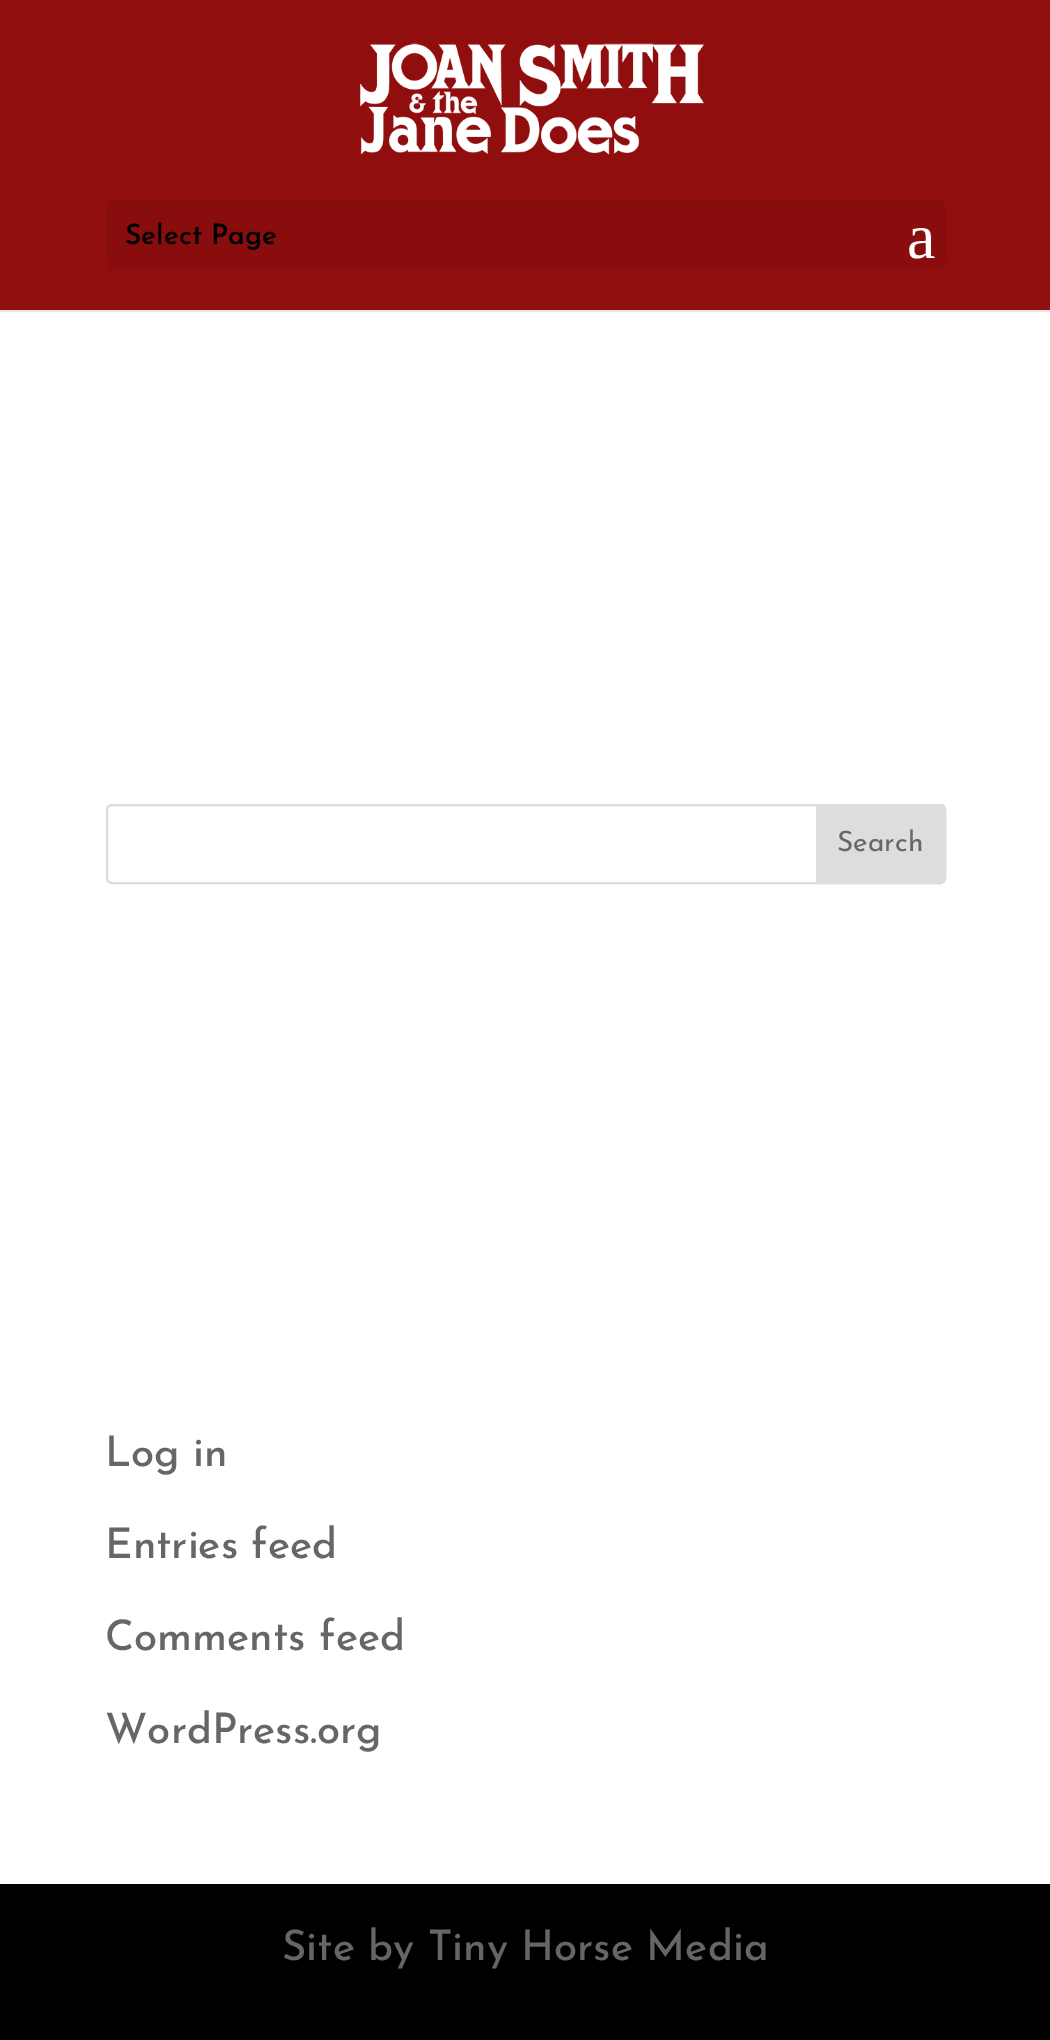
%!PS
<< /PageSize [1050 2040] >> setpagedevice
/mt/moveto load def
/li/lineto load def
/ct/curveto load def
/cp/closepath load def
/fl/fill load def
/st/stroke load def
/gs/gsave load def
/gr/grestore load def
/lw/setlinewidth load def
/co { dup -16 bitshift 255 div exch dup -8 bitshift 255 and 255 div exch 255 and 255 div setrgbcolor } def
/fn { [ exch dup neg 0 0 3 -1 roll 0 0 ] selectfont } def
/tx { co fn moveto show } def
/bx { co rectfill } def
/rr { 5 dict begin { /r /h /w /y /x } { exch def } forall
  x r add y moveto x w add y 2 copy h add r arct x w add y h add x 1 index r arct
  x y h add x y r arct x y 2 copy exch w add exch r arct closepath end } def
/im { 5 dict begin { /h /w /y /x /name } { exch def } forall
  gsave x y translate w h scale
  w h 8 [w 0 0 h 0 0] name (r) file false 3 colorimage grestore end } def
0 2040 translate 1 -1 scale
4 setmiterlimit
0 0 1050 2040 16#000000 bx
0 310 1050 2 16#E6E6E6 bx
0 0 1050 310 16#910E0E bx
(media/1.raw) 360 43 345 112 im
16#8A0D0D co
106 200 840 70 10 rr fl
0 312 1050 1572 16#FFFFFF bx
16#DDDDDD co
2 lw
107 805 838 78 5 rr st
817 805 mt 940 805 li 943 805 945 807 945 810 ct 945 878 li 945 881 943 883 940 883 ct 817 883 li cp gs fl gr
st
(Select Page) 125 244 /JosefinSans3-Thin 28 16#000000 tx
(a) 907 258 /LiberationSerif-Regular 64 16#FFFFFF tx
(Search) 837 851 /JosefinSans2-Thin 28 16#666666 tx
(Log in) 105 1466 /JosefinSans-Thin 42 16#666666 tx
(Entries feed) 105 1558 /JosefinSans-Thin 42 16#666666 tx
(Comments feed) 105 1650 /JosefinSans-Thin 42 16#666666 tx
(WordPress.org) 105 1743 /JosefinSans-Thin 42 16#666666 tx
(Site by Tiny Horse Media) 282 1960 /JosefinSans-Thin 42 16#666666 tx
showpage
